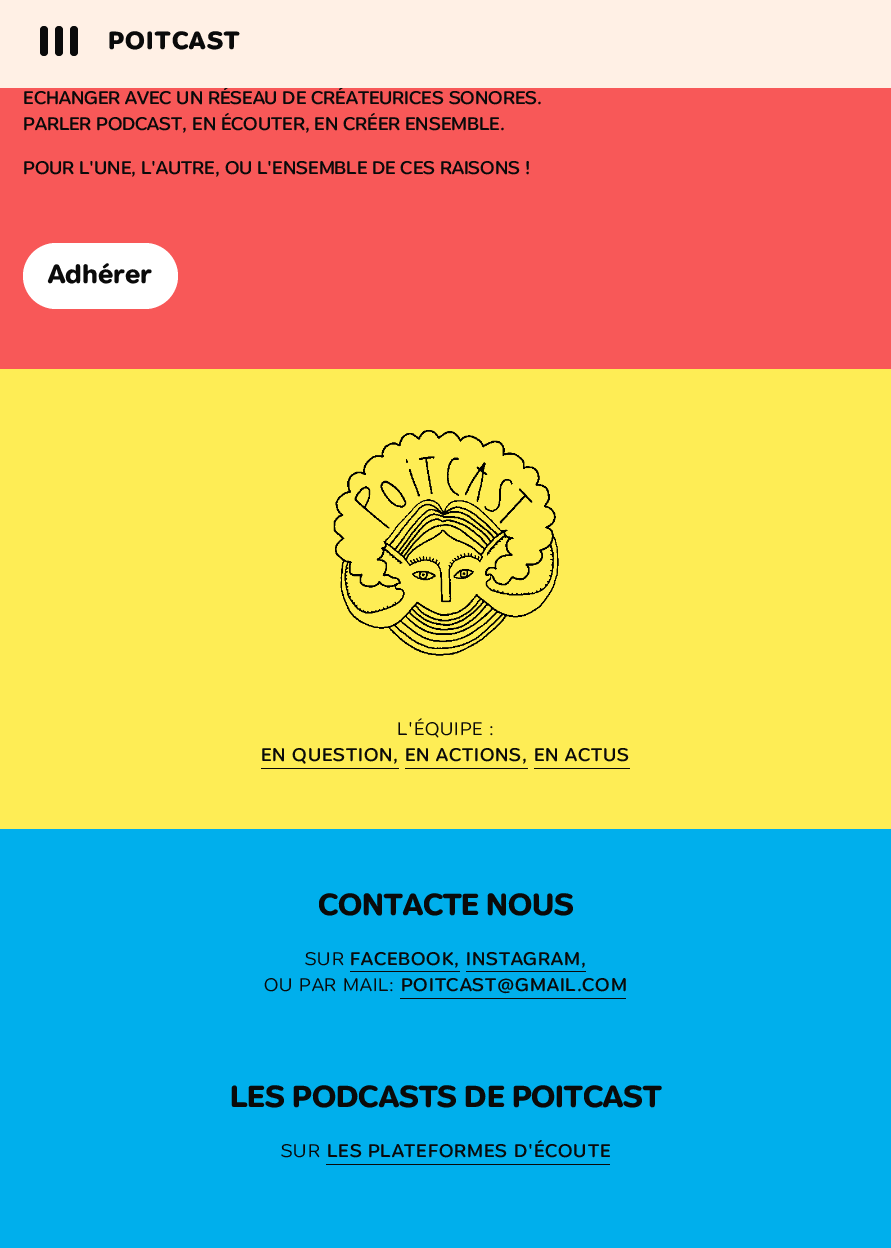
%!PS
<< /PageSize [891 1248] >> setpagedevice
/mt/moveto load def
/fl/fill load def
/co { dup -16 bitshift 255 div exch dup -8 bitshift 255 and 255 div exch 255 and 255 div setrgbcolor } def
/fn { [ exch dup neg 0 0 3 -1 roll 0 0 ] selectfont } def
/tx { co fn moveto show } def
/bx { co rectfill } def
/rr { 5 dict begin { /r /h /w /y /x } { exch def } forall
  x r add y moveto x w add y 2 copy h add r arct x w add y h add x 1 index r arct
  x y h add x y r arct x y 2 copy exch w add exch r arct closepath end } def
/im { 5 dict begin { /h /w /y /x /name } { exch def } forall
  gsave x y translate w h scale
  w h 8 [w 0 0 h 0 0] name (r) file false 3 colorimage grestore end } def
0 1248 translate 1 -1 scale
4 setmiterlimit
0 0 891 1248 16#F85858 bx
16#FFFFFF co
23 243 155 66 33 rr fl
0 369 891 460 16#FEED55 bx
(media/1.raw) 333 430 226 226 im
261 768 138 1 16#0A0A0A bx
405 768 123 1 16#0A0A0A bx
534 768 96 1 16#0A0A0A bx
0 829 891 419 16#00AFEC bx
350 971 110 1 16#0A0A0A bx
466 971 120 1 16#0A0A0A bx
400 998 226 1 16#0A0A0A bx
326 1164 284 1 16#0A0A0A bx
(ECHANGER AVEC UN RÉSEAU DE CRÉATEURICES SONORES.) 23 104 /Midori-Medium 17.5 16#0A0A0A tx
0 0 891 88 16#FFF0E5 bx
/Midori-Black 23.5 fn
16#0A0A0A co
108 49 mt 1.25 0 (POITCAST) ashow
70 26 8 30 4 rr fl
55 26 8 30 4 rr fl
40 26 8 30 4 rr fl
(PARLER PODCAST, EN ÉCOUTER, EN CRÉER ENSEMBLE.) 23 130 /Midori-Medium 17.5 16#0A0A0A tx
(POUR L'UNE, L'AUTRE, OU L'ENSEMBLE DE CES RAISONS !) 23 174 /Midori-Medium 17.5 16#0A0A0A tx
(Adhérer) 48 283 /Midori-ExtraBold 25 16#0A0A0A tx
/Midori-Regular 17.5 fn
397 735 mt .9 0 (L'ÉQUIPE :) ashow
/Midori-Medium 17.5 fn
261 761 mt .9 0 (EN QUESTION,) ashow
405 761 mt .9 0 (EN ACTIONS,) ashow
534 761 mt .9 0 (EN ACTUS) ashow
(CONTACTE NOUS) 318 915 /Midori-ExtraBold 28.9 16#0A0A0A tx
/Midori-Regular 17.5 fn
305 965 mt .9 0 (SUR) ashow
/Midori-Medium 17.5 fn
350 965 mt .9 0 (FACEBOOK,) ashow
466 965 mt .9 0 (INSTAGRAM,) ashow
/Midori-Regular 17.5 fn
264 991 mt .9 0 (OU PAR MAIL:) ashow
/Midori-Medium 17.5 fn
401 991 mt .9 0 (POITCAST@GMAIL.COM) ashow
(LES PODCASTS DE POITCAST) 230 1107 /Midori-ExtraBold 28.9 16#0A0A0A tx
/Midori-Regular 17.5 fn
281 1157 mt .9 0 (SUR) ashow
/Midori-Medium 17.5 fn
327 1157 mt .9 0 (LES PLATEFORMES D'ÉCOUTE) ashow
showpage
